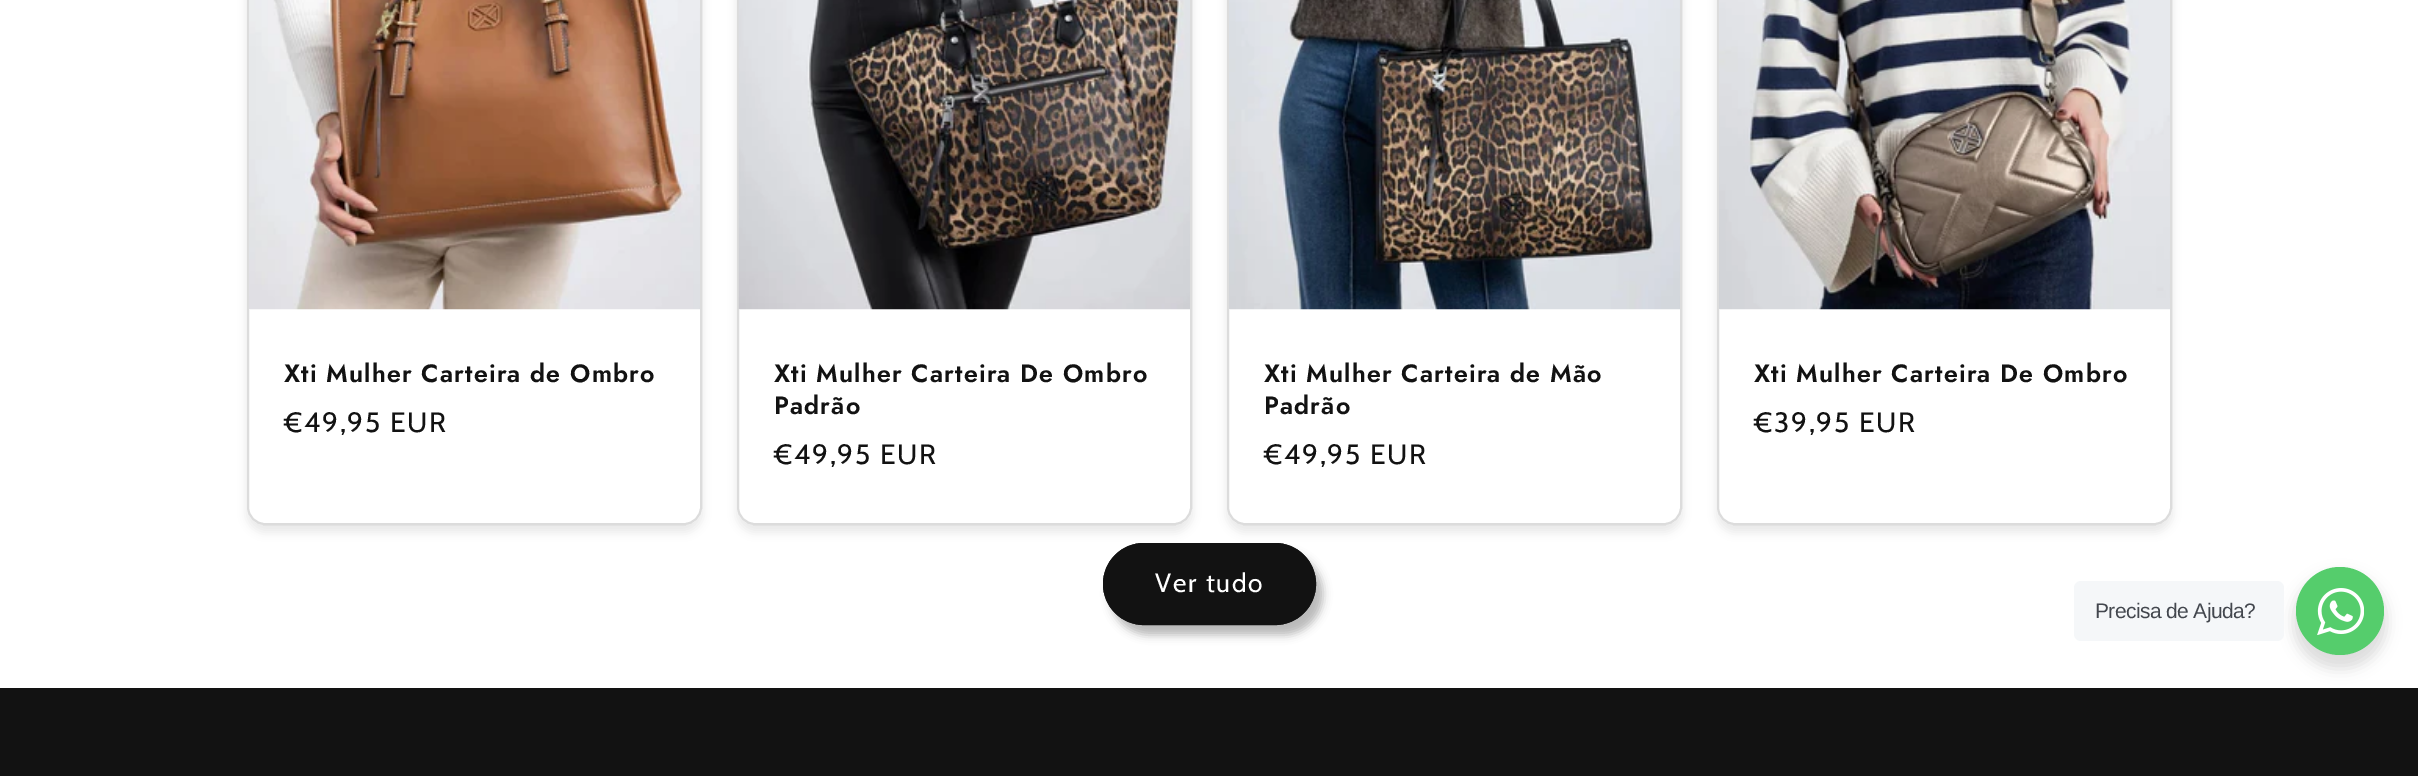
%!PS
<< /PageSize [2418 776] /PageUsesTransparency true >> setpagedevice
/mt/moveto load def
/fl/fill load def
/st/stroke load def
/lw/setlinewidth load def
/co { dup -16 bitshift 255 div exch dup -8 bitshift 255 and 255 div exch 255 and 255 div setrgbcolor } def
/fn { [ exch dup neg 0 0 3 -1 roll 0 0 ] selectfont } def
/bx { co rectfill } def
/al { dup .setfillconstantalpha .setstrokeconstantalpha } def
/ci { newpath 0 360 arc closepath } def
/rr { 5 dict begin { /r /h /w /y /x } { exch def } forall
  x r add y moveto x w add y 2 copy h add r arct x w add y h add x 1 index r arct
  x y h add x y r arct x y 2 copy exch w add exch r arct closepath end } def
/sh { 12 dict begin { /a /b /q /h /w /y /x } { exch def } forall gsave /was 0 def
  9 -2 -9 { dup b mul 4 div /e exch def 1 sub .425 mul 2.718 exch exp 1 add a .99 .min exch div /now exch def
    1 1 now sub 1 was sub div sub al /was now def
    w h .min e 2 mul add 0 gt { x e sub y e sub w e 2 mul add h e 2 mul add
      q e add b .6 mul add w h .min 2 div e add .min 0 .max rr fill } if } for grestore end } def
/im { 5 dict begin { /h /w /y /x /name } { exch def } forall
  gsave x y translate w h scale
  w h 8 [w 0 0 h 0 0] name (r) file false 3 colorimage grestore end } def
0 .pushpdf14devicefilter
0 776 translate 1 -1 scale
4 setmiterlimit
0 0 2418 776 16#FFFFFF bx
16#121212 co
247 -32 455 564 18 4.5 .1 sh
16#FFFFFF co
247 -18 455 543 18 rr fl
0.15 al
16#121212 co
2 lw
248 -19 453 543 17 rr st
1 al
(media/1.raw) 249 0 451 310 im
737 -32 455 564 18 4.5 .1 sh
16#FFFFFF co
737 -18 455 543 18 rr fl
0.15 al
16#121212 co
738 -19 453 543 17 rr st
1 al
(media/2.raw) 738 0 452 310 im
1227 -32 455 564 18 4.5 .1 sh
16#FFFFFF co
1227 -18 455 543 18 rr fl
0.15 al
16#121212 co
1228 -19 453 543 17 rr st
1 al
(media/3.raw) 1229 0 451 310 im
1717 -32 455 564 18 4.5 .1 sh
16#FFFFFF co
1717 -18 455 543 18 rr fl
0.15 al
16#121212 co
1718 -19 453 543 17 rr st
1 al
(media/4.raw) 1719 0 451 310 im
1110 553 213 82 41 4.5 .3 sh
1103 543 213 82 41 rr fl
1104 544 211 80 40 rr st
0 688 2418 88 16#121212 bx
16#000000 co
2293 574 94 95 47 7 .14 sh
16#F5F7F9 co
2074 581 210 60 7 rr fl
16#55CD6C co
2340 611 44 ci fl
(media/5.raw) 2317 588 47 47 im
/Jost-SemiBold 25 fn
16#121212 co
284 382 mt 1.15 0 (Xti Mulher Carteira de Ombro) ashow
/Cabin-Regular 28 fn
284 432 mt 1.75 0 (€49,95 EUR) ashow
/Jost-SemiBold 25 fn
774 382 mt 1.15 0 (Xti Mulher Carteira De Ombro) ashow
774 414 mt 1.15 0 (Padrão) ashow
/Cabin-Regular 28 fn
774 464 mt 1.75 0 (€49,95 EUR) ashow
/Jost-SemiBold 25 fn
1264 382 mt 1.15 0 (Xti Mulher Carteira de Mão) ashow
1264 414 mt 1.15 0 (Padrão) ashow
/Cabin-Regular 28 fn
1264 464 mt 1.75 0 (€49,95 EUR) ashow
/Jost-SemiBold 25 fn
1754 382 mt 1.15 0 (Xti Mulher Carteira De Ombro) ashow
/Cabin-Regular 28 fn
1754 432 mt 1.75 0 (€39,95 EUR) ashow
/Cabin-Regular 26.25 fn
16#FFFFFF co
1155 592 mt 1.75 0 (Ver tudo) ashow
/LiberationSans-Regular 21 fn
16#43474E co
2095 618 mt -.6 0 (Precisa de Ajuda?) ashow
.poppdf14devicefilter showpage
